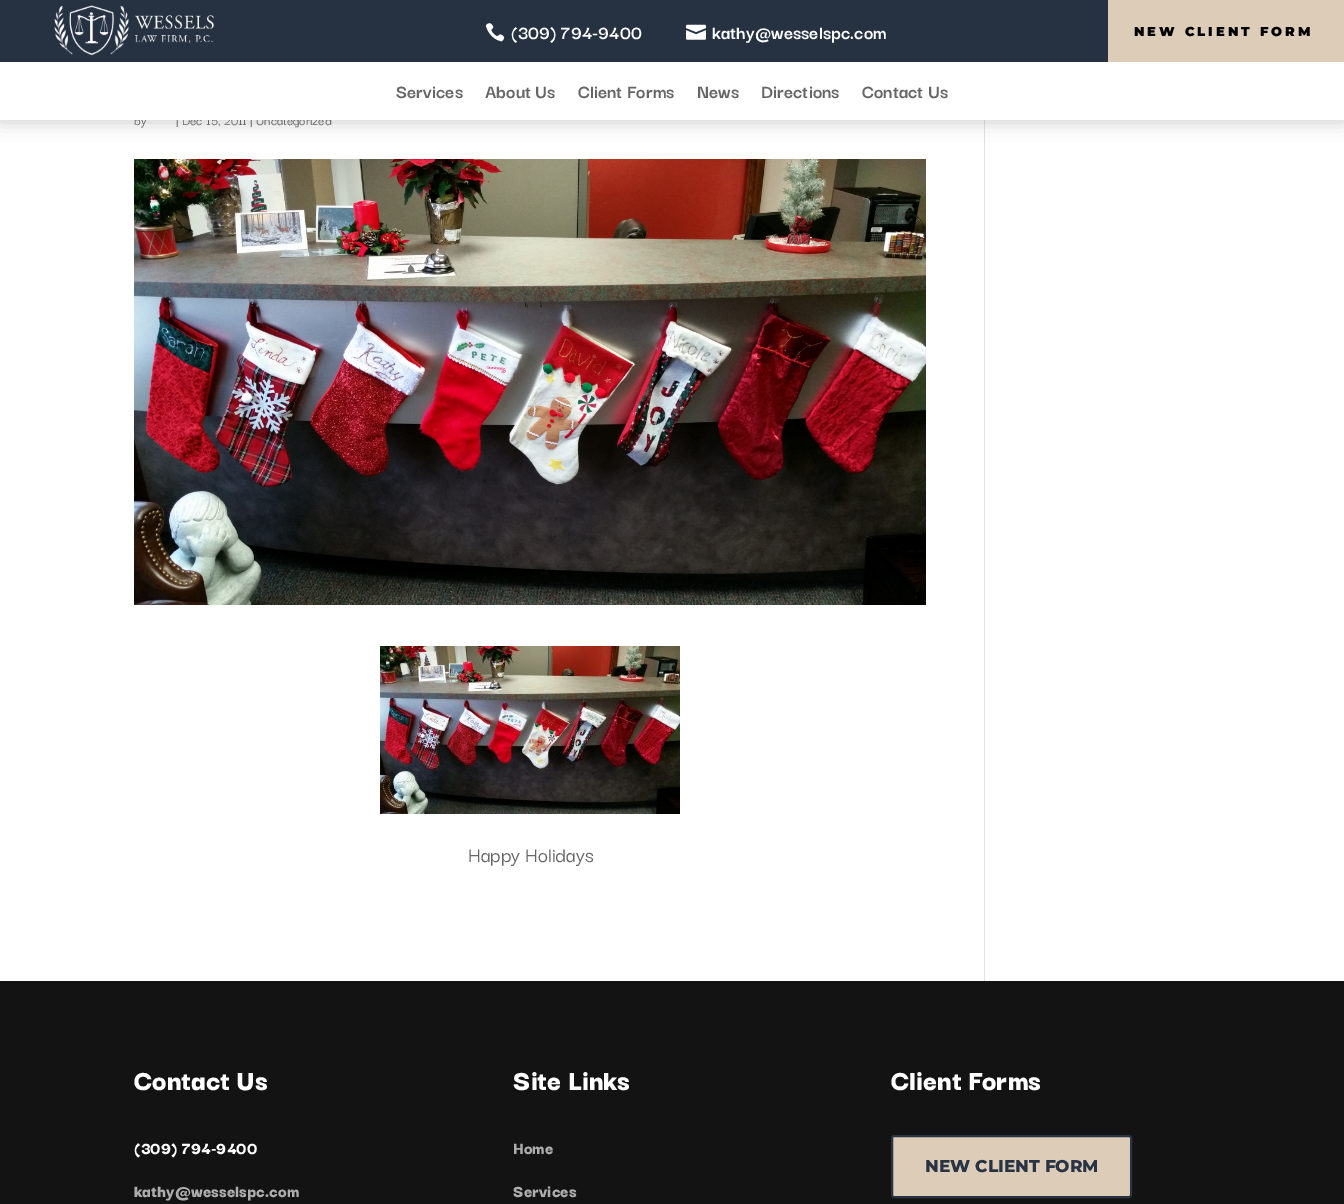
%!PS
<< /PageSize [1344 1204] /PageUsesTransparency true >> setpagedevice
/mt/moveto load def
/fl/fill load def
/st/stroke load def
/gs/gsave load def
/gr/grestore load def
/lw/setlinewidth load def
/co { dup -16 bitshift 255 div exch dup -8 bitshift 255 and 255 div exch 255 and 255 div setrgbcolor } def
/fn { [ exch dup neg 0 0 3 -1 roll 0 0 ] selectfont } def
/tx { co fn moveto show } def
/bx { co rectfill } def
/al { dup .setfillconstantalpha .setstrokeconstantalpha } def
/rr { 5 dict begin { /r /h /w /y /x } { exch def } forall
  x r add y moveto x w add y 2 copy h add r arct x w add y h add x 1 index r arct
  x y h add x y r arct x y 2 copy exch w add exch r arct closepath end } def
/sh { 12 dict begin { /a /b /q /h /w /y /x } { exch def } forall gsave /was 0 def
  9 -2 -9 { dup b mul 4 div /e exch def 1 sub .425 mul 2.718 exch exp 1 add a .99 .min exch div /now exch def
    1 1 now sub 1 was sub div sub al /was now def
    w h .min e 2 mul add 0 gt { x e sub y e sub w e 2 mul add h e 2 mul add
      q e add b .6 mul add w h .min 2 div e add .min 0 .max rr fill } if } for grestore end } def
/im { 5 dict begin { /h /w /y /x /name } { exch def } forall
  gsave x y translate w h scale
  w h 8 [w 0 0 h 0 0] name (r) file false 3 colorimage grestore end } def
0 .pushpdf14devicefilter
0 1204 translate 1 -1 scale
4 setmiterlimit
0 0 1344 1204 16#FFFFFF bx
984 120 1 861 16#E2E2E2 bx
16#000000 co
0 2 1344 120 0 9 .2 sh
0 0 1108 62 16#263142 bx
(media/1.raw) 54 5 160 51 im
(media/2.raw) 485 23 20 19 im
(media/3.raw) 686 24 20 16 im
1108 0 236 62 16#DDCCB8 bx
(media/4.raw) 134 159 792 446 im
(media/5.raw) 380 646 300 168 im
0 981 1344 223 16#131313 bx
16#DDCCB8 co
892 1136 239 61 2 rr gs fl gr
16#283444 co
2 lw
st
(\(309\) 794-9400) 511 39 /DarkerGrotesque-Bold 20 16#FFFFFF tx
(kathy@wesselspc.com) 712 39 /DarkerGrotesque-Bold 20 16#FFFFFF tx
/Montserrat-Black 13 fn
16#000000 co
1134 36 mt 3 0 (NEW CLIENT FORM) ashow
(by) 134 125 /DarkerGrotesque-Medium 14 16#666666 tx
(| Dec 15, 2011 | Uncategorized) 176 125 /DarkerGrotesque-Medium 14 16#666666 tx
0 62 1344 58 16#FFFFFF bx
(Contact Us) 862 98 /DarkerGrotesque-Bold 20 16#666666 tx
(Directions) 761 98 /DarkerGrotesque-Bold 20 16#666666 tx
(News) 697 98 /DarkerGrotesque-Bold 20 16#666666 tx
(Client Forms) 578 98 /DarkerGrotesque-Bold 20 16#666666 tx
(About Us) 485 98 /DarkerGrotesque-Bold 20 16#666666 tx
(Services) 396 98 /DarkerGrotesque-Bold 20 16#666666 tx
(Happy Holidays) 468 862 /DarkerGrotesque-Medium 22 16#666666 tx
(Contact Us) 134 1090 /DarkerGrotesque-Black 30 16#FFFFFF tx
(\(309\) 794-9400) 134 1154 /DarkerGrotesque-Black 18 16#FFFFFF tx
(kathy@wesselspc.com) 134 1197 /DarkerGrotesque-Black 18 16#ADADAD tx
(Site Links) 513 1090 /DarkerGrotesque-Black 30 16#FFFFFF tx
(Home) 513 1154 /DarkerGrotesque-Black 18 16#ADADAD tx
(Services) 513 1197 /DarkerGrotesque-Black 18 16#ADADAD tx
(Client Forms) 891 1090 /DarkerGrotesque-Black 30 16#FFFFFF tx
(NEW CLIENT FORM) 925 1172 /Montserrat-ExtraBold 17 16#283444 tx
.poppdf14devicefilter showpage
